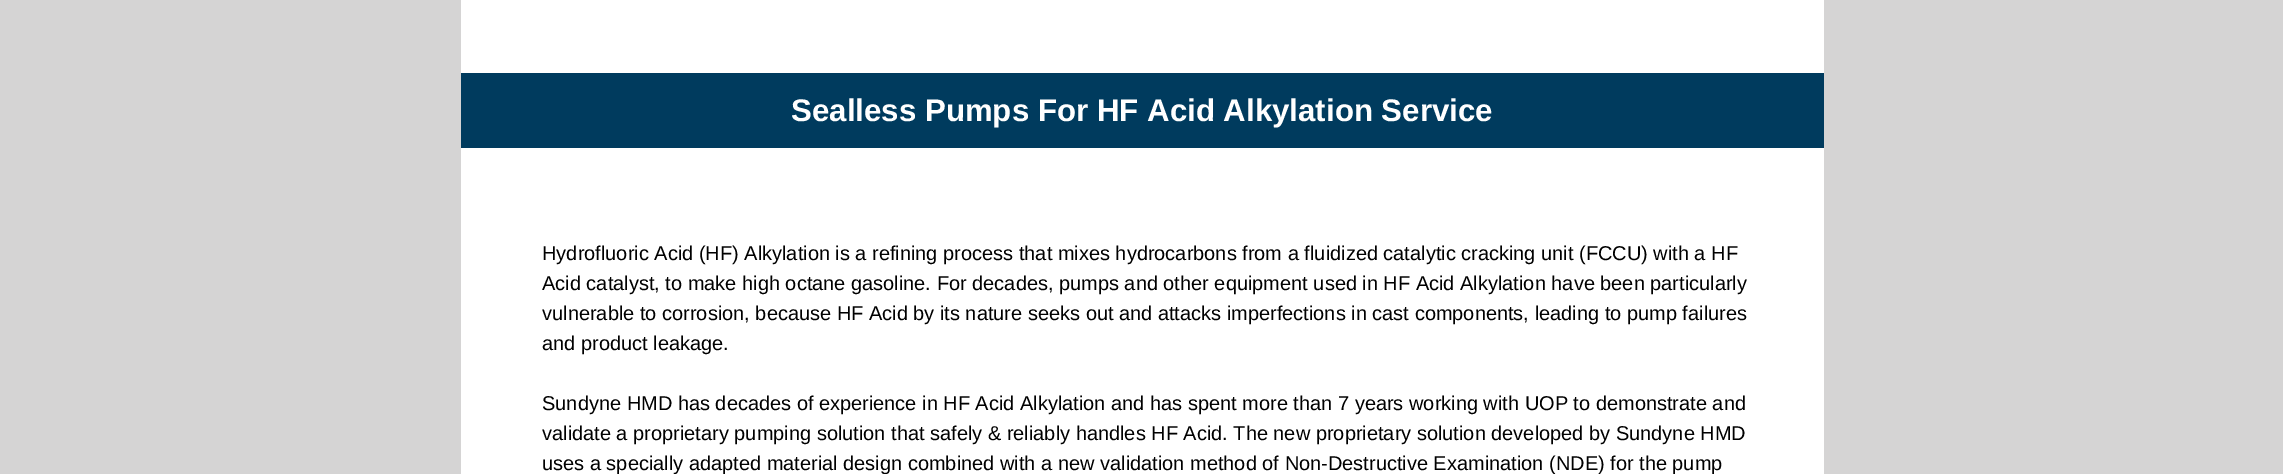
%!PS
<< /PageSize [2283 474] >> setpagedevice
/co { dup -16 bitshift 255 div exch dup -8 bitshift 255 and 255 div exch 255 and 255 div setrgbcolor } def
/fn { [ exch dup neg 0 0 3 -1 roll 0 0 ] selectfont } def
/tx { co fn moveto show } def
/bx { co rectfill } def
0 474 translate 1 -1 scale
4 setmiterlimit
0 0 2283 474 16#D5D4D4 bx
461 0 1363 73 16#FFFFFF bx
461 73 1363 75 16#003B5E bx
461 148 1363 326 16#FFFFFF bx
(Sealless Pumps For HF Acid Alkylation Service) 791 121 /LiberationSans-Bold 31.25 16#FFFFFF tx
(Hydrofluoric Acid \(HF\) Alkylation is a refining process that mixes hydrocarbons from a fluidized catalytic cracking unit \(FCCU\) with a HF) 542 260 /LiberationSans-Regular 20 16#000000 tx
(Acid catalyst, to make high octane gasoline. For decades, pumps and other equipment used in HF Acid Alkylation have been particularly) 542 290 /LiberationSans-Regular 20 16#000000 tx
(vulnerable to corrosion, because HF Acid by its nature seeks out and attacks imperfections in cast components, leading to pump failures) 542 320 /LiberationSans-Regular 20 16#000000 tx
(and product leakage.) 542 350 /LiberationSans-Regular 20 16#000000 tx
(Sundyne HMD has decades of experience in HF Acid Alkylation and has spent more than 7 years working with UOP to demonstrate and) 542 410 /LiberationSans-Regular 20 16#000000 tx
(validate a proprietary pumping solution that safely & reliably handles HF Acid. The new proprietary solution developed by Sundyne HMD) 542 440 /LiberationSans-Regular 20 16#000000 tx
(uses a specially adapted material design combined with a new validation method of Non-Destructive Examination \(NDE\) for the pump) 542 470 /LiberationSans-Regular 20 16#000000 tx
showpage
